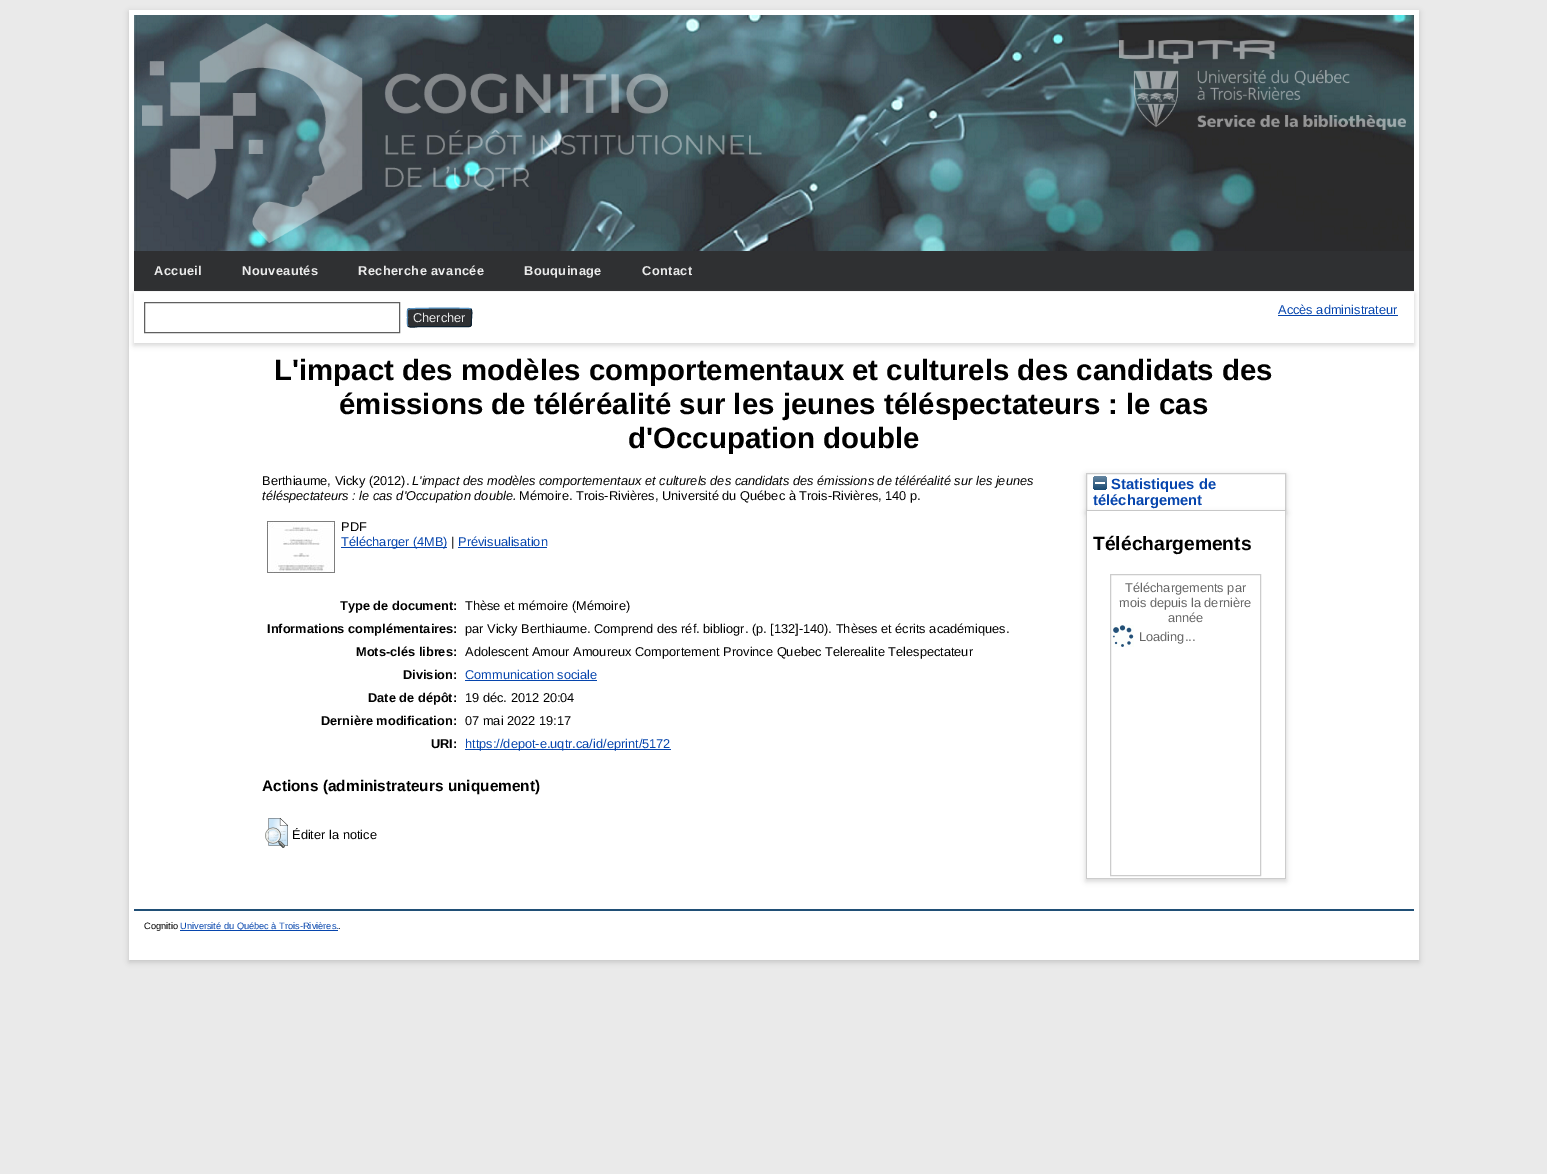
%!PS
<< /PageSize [1547 1174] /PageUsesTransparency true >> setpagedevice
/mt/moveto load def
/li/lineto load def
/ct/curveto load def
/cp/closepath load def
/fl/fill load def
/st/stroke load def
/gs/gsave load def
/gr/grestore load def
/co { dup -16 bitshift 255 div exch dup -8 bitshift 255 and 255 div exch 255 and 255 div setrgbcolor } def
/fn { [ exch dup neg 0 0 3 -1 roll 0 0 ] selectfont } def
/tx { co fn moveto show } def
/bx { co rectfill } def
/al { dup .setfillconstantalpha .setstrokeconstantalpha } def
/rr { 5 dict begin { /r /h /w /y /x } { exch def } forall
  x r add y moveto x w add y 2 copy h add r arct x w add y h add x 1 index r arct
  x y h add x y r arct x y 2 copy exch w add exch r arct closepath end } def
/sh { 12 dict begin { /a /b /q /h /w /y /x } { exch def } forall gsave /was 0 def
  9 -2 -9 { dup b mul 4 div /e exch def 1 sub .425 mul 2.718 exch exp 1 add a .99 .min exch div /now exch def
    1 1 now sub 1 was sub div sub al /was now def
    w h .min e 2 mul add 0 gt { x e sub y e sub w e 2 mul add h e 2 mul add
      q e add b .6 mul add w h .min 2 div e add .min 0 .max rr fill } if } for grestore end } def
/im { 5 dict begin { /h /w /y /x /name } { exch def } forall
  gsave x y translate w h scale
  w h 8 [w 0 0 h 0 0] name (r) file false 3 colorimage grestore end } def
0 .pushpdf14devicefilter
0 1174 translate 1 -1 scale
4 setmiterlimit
0 0 1547 1174 16#EAEAEA bx
16#646464 co
129 12 1290 950 0 3 .3 sh
129 10 1290 950 16#FFFFFF bx
(media/1.raw) 134 15 1280 236 im
(media/2.raw) 142 23 620 220 im
(media/3.raw) 1119 40 287 90 im
134 251 1280 40 16#2F3032 bx
16#646464 co
134 294 1280 51 0 3 .3 sh
134 292 1280 51 16#FFFFFF bx
1278 315 120 1 16#0645AD bx
16#606060 co
144.5 302.5 255 30 rectstroke
16#2F3032 co
407 308 65 19 3 rr fl
16#5B97C7 co
408 309 mt 408.5 309 li 409.5 308 464 308 469 308.5 ct 471 309 li st
16#0D2131 co
471 309 mt 472.5 311 471.5 315.5 471.5 317.5 ct 471.5 329 472 326.5 459 326.5 ct 420 326.5 li 416 326.5 411 328.5 408 326 ct st
16#5287B3 co
408 326 mt 407 324.5 407.5 319.5 407.5 317.5 ct 407.5 315.5 407 310.5 408 309 ct st
(media/4.raw) 267 521 68 52 im
341 547 106 1 16#0645AD bx
458 547 89 1 16#0645AD bx
465 680 132 1 16#0645AD bx
465 749 206 1 16#0645AD bx
(media/5.raw) 265 818 23 30 im
gs
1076 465 mt 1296 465 li 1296 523 li 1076 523 li cp 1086 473 mt 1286 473 li 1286 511 li 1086 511 li cp eoclip newpath
16#646464 co
1086 475 200 38 0 3 .3 sh
gr
16#CCCCCC co
1086.5 473.5 199 37 rectstroke
(media/6.raw) 1093 476 14 14 im
16#646464 co
1086 513 200 368 0 3 .3 sh
1087 511 198 367 16#FFFFFF bx
1285 511 1 368 16#CCCCCC bx
1086 878 200 1 16#CCCCCC bx
1086 511 1 368 16#CCCCCC bx
1110.5 574.5 150 301 rectstroke
(media/7.raw) 1112 625 22 22 im
134 909 1280 2 16#204F76 bx
180 930 158 1 16#0645AD bx
/LiberationSans-Bold 12.8 fn
16#EBEBEB co
154 275 mt .4 0 (Accueil) ashow
242 275 mt .4 0 (Nouveautés) ashow
358 275 mt .4 0 (Recherche avancée) ashow
524 275 mt .4 0 (Bouquinage) ashow
642 275 mt .4 0 (Contact) ashow
(Accès administrateur) 1278 314 /LiberationSans-Regular 12.8 16#0645AD tx
(Chercher) 413 322 /LiberationSans-Regular 12.8 16#EBEBEB tx
(L'impact des modèles comportementaux et culturels des candidats des) 274 380 /LiberationSans-Bold 29.45 16#000000 tx
(émissions de téléréalité sur les jeunes téléspectateurs : le cas) 339 414 /LiberationSans-Bold 29.45 16#000000 tx
(d'Occupation double) 628 448 /LiberationSans-Bold 29.45 16#000000 tx
(Berthiaume, Vicky \(2012\).) 262 485 /LiberationSans-Regular 12.8 16#000000 tx
(L'impact des modèles comportementaux et culturels des candidats des émissions de téléréalité sur les jeunes) 412 485 /LiberationSans-Italic 12.8 16#000000 tx
(téléspectateurs : le cas d'Occupation double.) 262 500 /LiberationSans-Italic 12.8 16#000000 tx
(Mémoire. Trois-Rivières, Université du Québec à Trois-Rivières, 140 p.) 519 500 /LiberationSans-Regular 12.8 16#000000 tx
(PDF) 341 531 /LiberationSans-Regular 12.8 16#000000 tx
(Télécharger \(4MB\)) 341 546 /LiberationSans-Regular 12.8 16#0645AD tx
(|) 451 546 /LiberationSans-Regular 12.8 16#000000 tx
(Prévisualisation) 458 546 /LiberationSans-Regular 12.8 16#0645AD tx
(Type de document:) 340 610 /LiberationSans-Bold 12.8 16#000000 tx
(Thèse et mémoire \(Mémoire\)) 465 610 /LiberationSans-Regular 12.8 16#000000 tx
(Informations complémentaires:) 267 633 /LiberationSans-Bold 12.8 16#000000 tx
(par Vicky Berthiaume. Comprend des réf. bibliogr. \(p. [132]-140\). Thèses et écrits académiques.) 465 633 /LiberationSans-Regular 12.8 16#000000 tx
(Mots-clés libres:) 356 656 /LiberationSans-Bold 12.8 16#000000 tx
(Adolescent Amour Amoureux Comportement Province Quebec Telerealite Telespectateur) 465 656 /LiberationSans-Regular 12.8 16#000000 tx
(Division:) 403 679 /LiberationSans-Bold 12.8 16#000000 tx
(Communication sociale) 465 679 /LiberationSans-Regular 12.8 16#0645AD tx
(Date de dépôt:) 368 702 /LiberationSans-Bold 12.8 16#000000 tx
(19 déc. 2012 20:04) 465 702 /LiberationSans-Regular 12.8 16#000000 tx
(Dernière modification:) 321 725 /LiberationSans-Bold 12.8 16#000000 tx
(07 mai 2022 19:17) 465 725 /LiberationSans-Regular 12.8 16#000000 tx
(URI:) 431 748 /LiberationSans-Bold 12.8 16#000000 tx
(https://depot-e.uqtr.ca/id/eprint/5172) 465 748 /LiberationSans-Regular 12.8 16#0645AD tx
(Actions \(administrateurs uniquement\)) 262 791 /LiberationSans-Bold 15.4 16#000000 tx
(Éditer la notice) 292 839 /LiberationSans-Regular 12.8 16#000000 tx
(Statistiques de) 1111 489 /LiberationSans-Bold 14.75 16#0645AD tx
(téléchargement) 1093 505 /LiberationSans-Bold 14.75 16#0645AD tx
(Téléchargements) 1093 550 /LiberationSans-Bold 19.25 16#000000 tx
(Téléchargements par) 1125 592 /LiberationSans-Regular 12.8 16#666666 tx
(mois depuis la dernière) 1119 607 /LiberationSans-Regular 12.8 16#666666 tx
(année) 1168 622 /LiberationSans-Regular 12.8 16#666666 tx
(Loading...) 1139 641 /LiberationSans-Regular 12.8 16#666666 tx
(Cognitio) 144 929 /LiberationSans-Regular 9.25 16#000000 tx
(Université du Québec à Trois-Rivières.) 180 929 /LiberationSans-Regular 9.25 16#0645AD tx
(.) 338 929 /LiberationSans-Regular 9.25 16#000000 tx
.poppdf14devicefilter showpage
